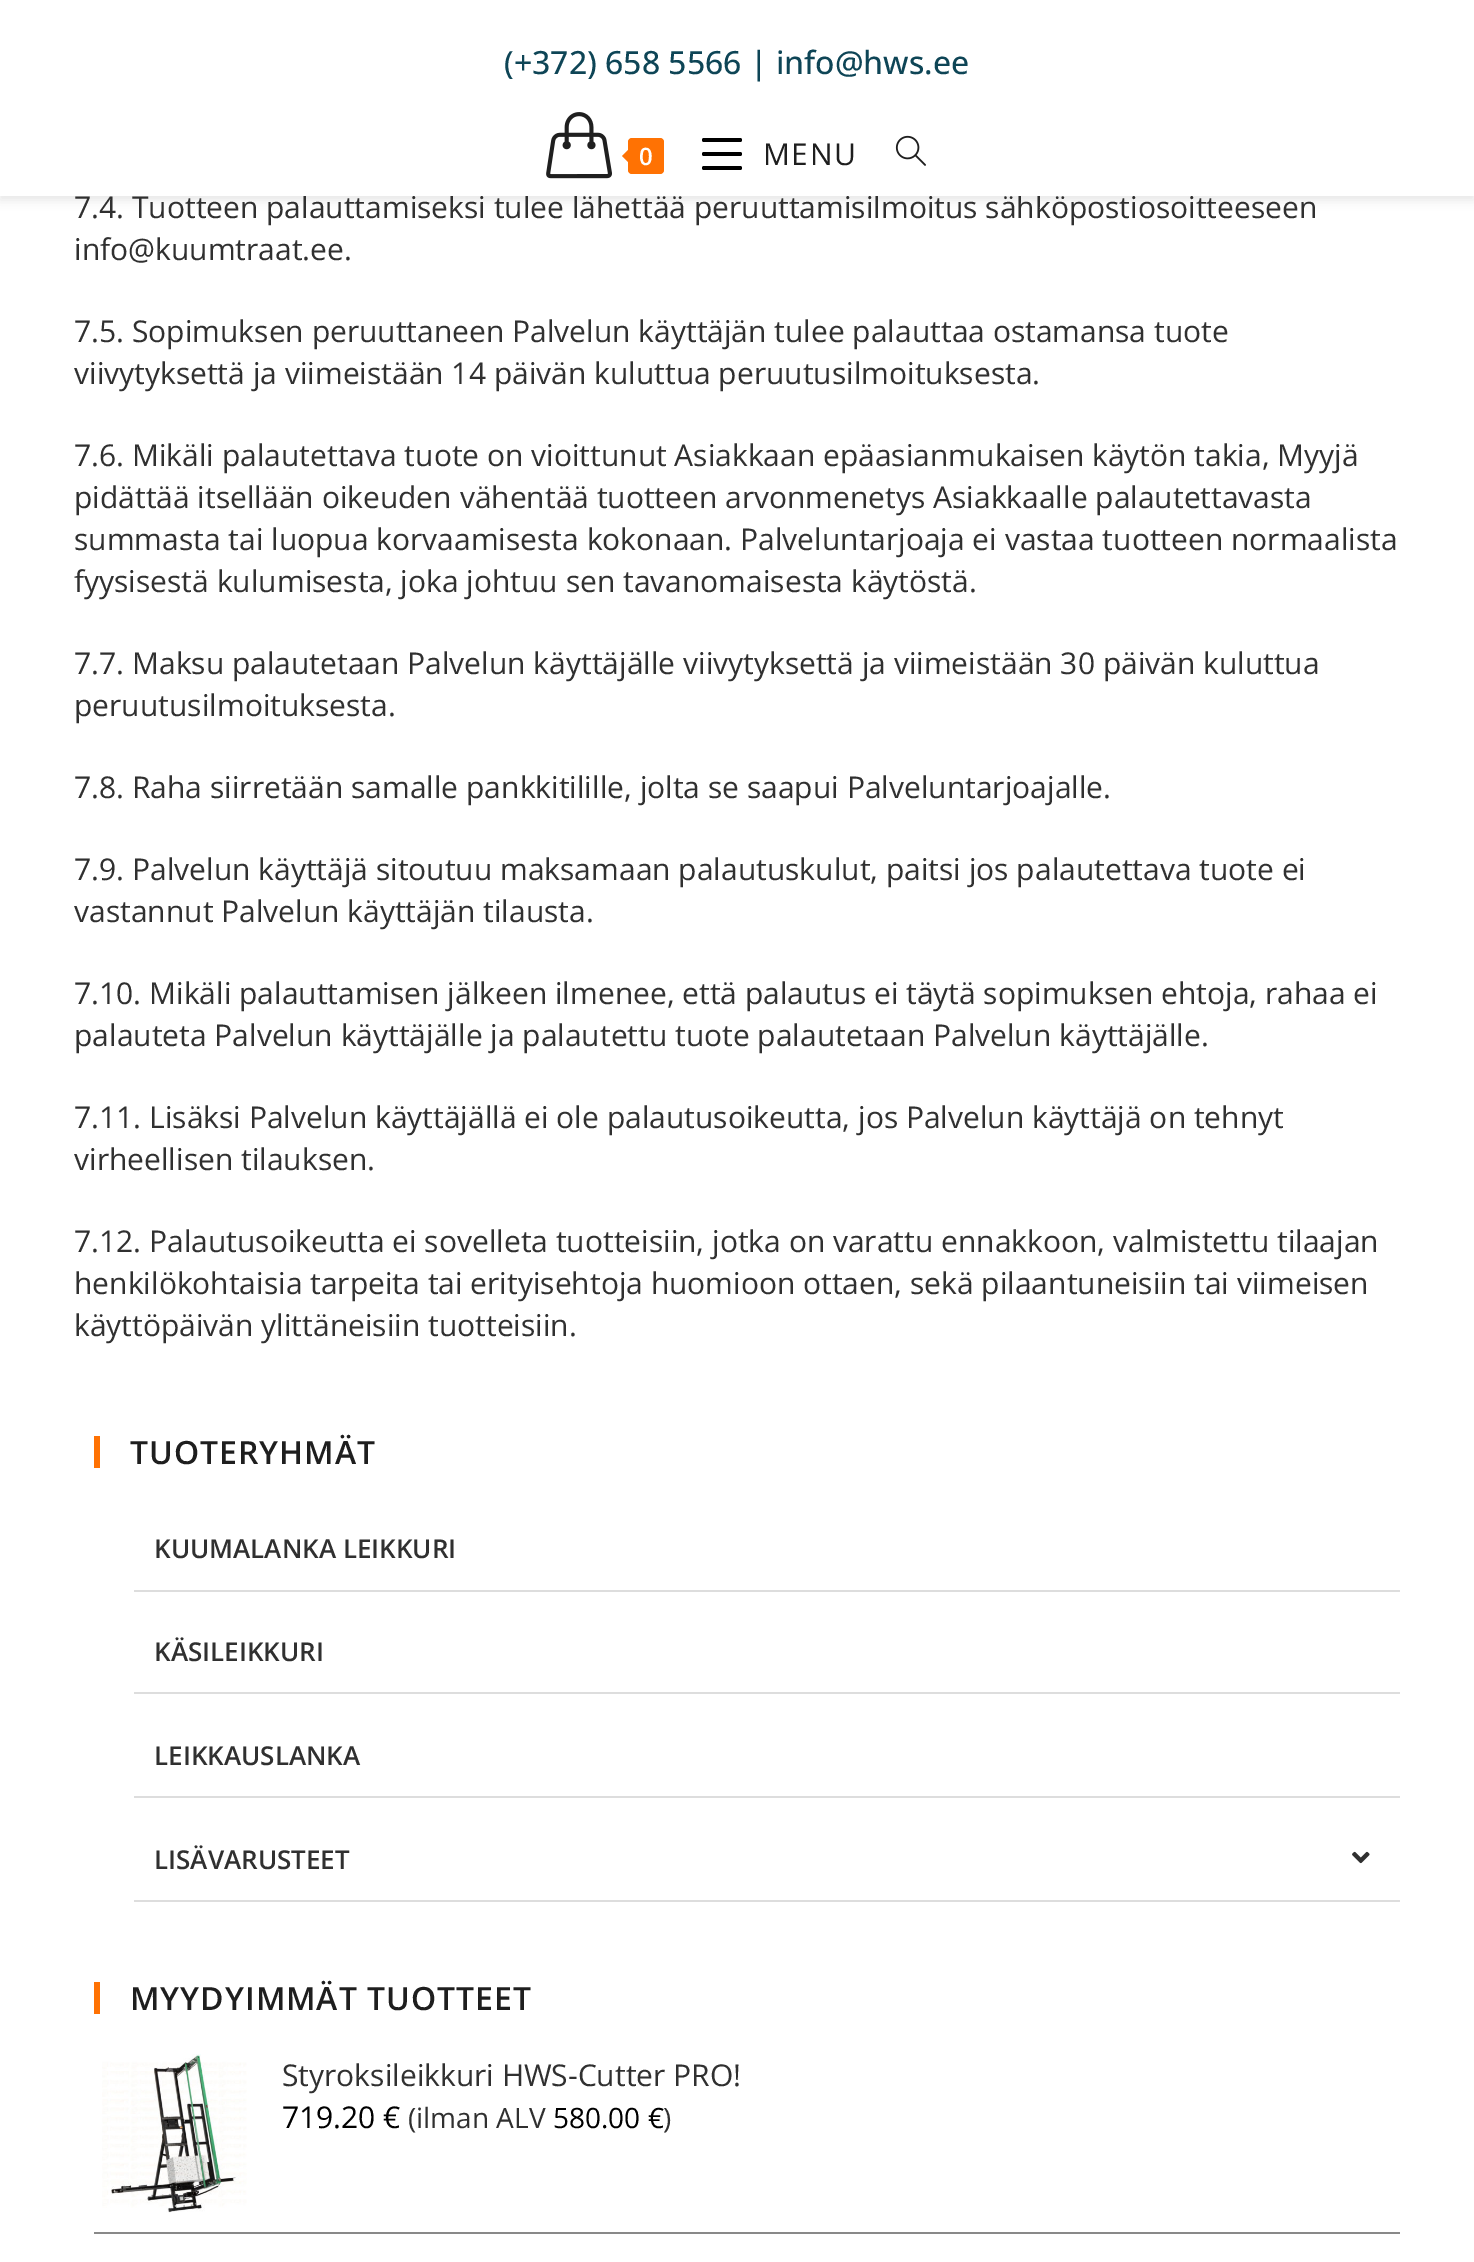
%!PS
<< /PageSize [1474 2262] /PageUsesTransparency true >> setpagedevice
/mt/moveto load def
/li/lineto load def
/cp/closepath load def
/fl/fill load def
/co { dup -16 bitshift 255 div exch dup -8 bitshift 255 and 255 div exch 255 and 255 div setrgbcolor } def
/fn { [ exch dup neg 0 0 3 -1 roll 0 0 ] selectfont } def
/tx { co fn moveto show } def
/bx { co rectfill } def
/al { dup .setfillconstantalpha .setstrokeconstantalpha } def
/rr { 5 dict begin { /r /h /w /y /x } { exch def } forall
  x r add y moveto x w add y 2 copy h add r arct x w add y h add x 1 index r arct
  x y h add x y r arct x y 2 copy exch w add exch r arct closepath end } def
/sh { 12 dict begin { /a /b /q /h /w /y /x } { exch def } forall gsave /was 0 def
  9 -2 -9 { dup b mul 4 div /e exch def 1 sub .425 mul 2.718 exch exp 1 add a .99 .min exch div /now exch def
    1 1 now sub 1 was sub div sub al /was now def
    w h .min e 2 mul add 0 gt { x e sub y e sub w e 2 mul add h e 2 mul add
      q e add b .6 mul add w h .min 2 div e add .min 0 .max rr fill } if } for grestore end } def
/im { 5 dict begin { /h /w /y /x /name } { exch def } forall
  gsave x y translate w h scale
  w h 8 [w 0 0 h 0 0] name (r) file false 3 colorimage grestore end } def
0 .pushpdf14devicefilter
0 2262 translate 1 -1 scale
4 setmiterlimit
0 0 1474 2262 16#FFFFFF bx
16#000000 co
0 4 1474 196 0 5 .1 sh
94 1436 6 32 16#FF7203 bx
134 1590 1266 2 16#DDDDDD bx
134 1692 1266 2 16#DDDDDD bx
134 1796 1266 2 16#DDDDDD bx
134 1900 1266 2 16#DDDDDD bx
(media/3.raw) 1352 1851 18 13 im
94 1982 6 32 16#FF7203 bx
94 2232 1306 2 16#898989 bx
(media/4.raw) 102 2054 145 159 im
(7.4. Tuotteen palauttamiseksi tulee lähettää peruuttamisilmoitus sähköpostiosoitteeseen) 74 218 /OpenSans-Regular 30 16#303030 tx
0 0 1474 196 16#FFFFFF bx
16#000000 co
702 166 40 4 2 rr fl
702 138 40 4 2 rr fl
702 152 40 4 2 rr fl
16#FF7203 co
628 138 36 36 4 rr fl
632 146 mt 632 166 li 622 156 li cp fl
/OpenSans-SemiBold 24 fn
16#FFFFFF co
639 165 mt 1.5 0 (0) ashow
(media/1.raw) 546 112 66 67 im
(media/2.raw) 895 135 31 31 im
/OpenSans-Regular 30 fn
16#1E1E1E co
763 165 mt 1.5 0 (MENU) ashow
(\(+372\) 658 5566 | info@hws.ee) 504 74 /OpenSans-Medium 32 16#0E4556 tx
(info@kuumtraat.ee.) 74 260 /OpenSans-Regular 30 16#303030 tx
(7.5. Sopimuksen peruuttaneen Palvelun käyttäjän tulee palauttaa ostamansa tuote) 74 342 /OpenSans-Regular 30 16#303030 tx
(viivytyksettä ja viimeistään 14 päivän kuluttua peruutusilmoituksesta.) 74 384 /OpenSans-Regular 30 16#303030 tx
(7.6. Mikäli palautettava tuote on vioittunut Asiakkaan epäasianmukaisen käytön takia, Myyjä) 74 466 /OpenSans-Regular 30 16#303030 tx
(pidättää itsellään oikeuden vähentää tuotteen arvonmenetys Asiakkaalle palautettavasta) 74 508 /OpenSans-Regular 30 16#303030 tx
(summasta tai luopua korvaamisesta kokonaan. Palveluntarjoaja ei vastaa tuotteen normaalista) 74 550 /OpenSans-Regular 30 16#303030 tx
(fyysisestä kulumisesta, joka johtuu sen tavanomaisesta käytöstä.) 74 592 /OpenSans-Regular 30 16#303030 tx
(7.7. Maksu palautetaan Palvelun käyttäjälle viivytyksettä ja viimeistään 30 päivän kuluttua) 74 674 /OpenSans-Regular 30 16#303030 tx
(peruutusilmoituksesta.) 74 716 /OpenSans-Regular 30 16#303030 tx
(7.8. Raha siirretään samalle pankkitilille, jolta se saapui Palveluntarjoajalle.) 74 798 /OpenSans-Regular 30 16#303030 tx
(7.9. Palvelun käyttäjä sitoutuu maksamaan palautuskulut, paitsi jos palautettava tuote ei) 74 880 /OpenSans-Regular 30 16#303030 tx
(vastannut Palvelun käyttäjän tilausta.) 74 922 /OpenSans-Regular 30 16#303030 tx
(7.10. Mikäli palauttamisen jälkeen ilmenee, että palautus ei täytä sopimuksen ehtoja, rahaa ei) 74 1004 /OpenSans-Regular 30 16#303030 tx
(palauteta Palvelun käyttäjälle ja palautettu tuote palautetaan Palvelun käyttäjälle.) 74 1046 /OpenSans-Regular 30 16#303030 tx
(7.11. Lisäksi Palvelun käyttäjällä ei ole palautusoikeutta, jos Palvelun käyttäjä on tehnyt) 74 1128 /OpenSans-Regular 30 16#303030 tx
(virheellisen tilauksen.) 74 1170 /OpenSans-Regular 30 16#303030 tx
(7.12. Palautusoikeutta ei sovelleta tuotteisiin, jotka on varattu ennakkoon, valmistettu tilaajan) 74 1252 /OpenSans-Regular 30 16#303030 tx
(henkilökohtaisia tarpeita tai erityisehtoja huomioon ottaen, sekä pilaantuneisiin tai viimeisen) 74 1294 /OpenSans-Regular 30 16#303030 tx
(käyttöpäivän ylittäneisiin tuotteisiin.) 74 1336 /OpenSans-Regular 30 16#303030 tx
/OpenSans-SemiBold 32 fn
16#1E1E1E co
130 1464 mt 1 0 (TUOTERYHMÄT) ashow
(KUUMALANKA LEIKKURI) 154 1558 /OpenSans-SemiBold 26 16#303030 tx
(KÄSILEIKKURI) 154 1661 /OpenSans-SemiBold 26 16#303030 tx
(LEIKKAUSLANKA) 154 1765 /OpenSans-SemiBold 26 16#303030 tx
(LISÄVARUSTEET) 154 1869 /OpenSans-SemiBold 26 16#303030 tx
/OpenSans-SemiBold 32 fn
16#1E1E1E co
130 2010 mt 1 0 (MYYDYIMMÄT TUOTTEET) ashow
(Styroksileikkuri HWS-Cutter PRO!) 282 2086 /OpenSans-Regular 30 16#303030 tx
(719.20 €) 282 2128 /OpenSans-Regular 30 16#000000 tx
(\(ilman ALV) 408 2128 /OpenSans-Regular 28 16#303030 tx
(580.00 €) 553 2128 /OpenSans-Regular 28 16#000000 tx
(\)) 663 2128 /OpenSans-Regular 28 16#303030 tx
.poppdf14devicefilter showpage
